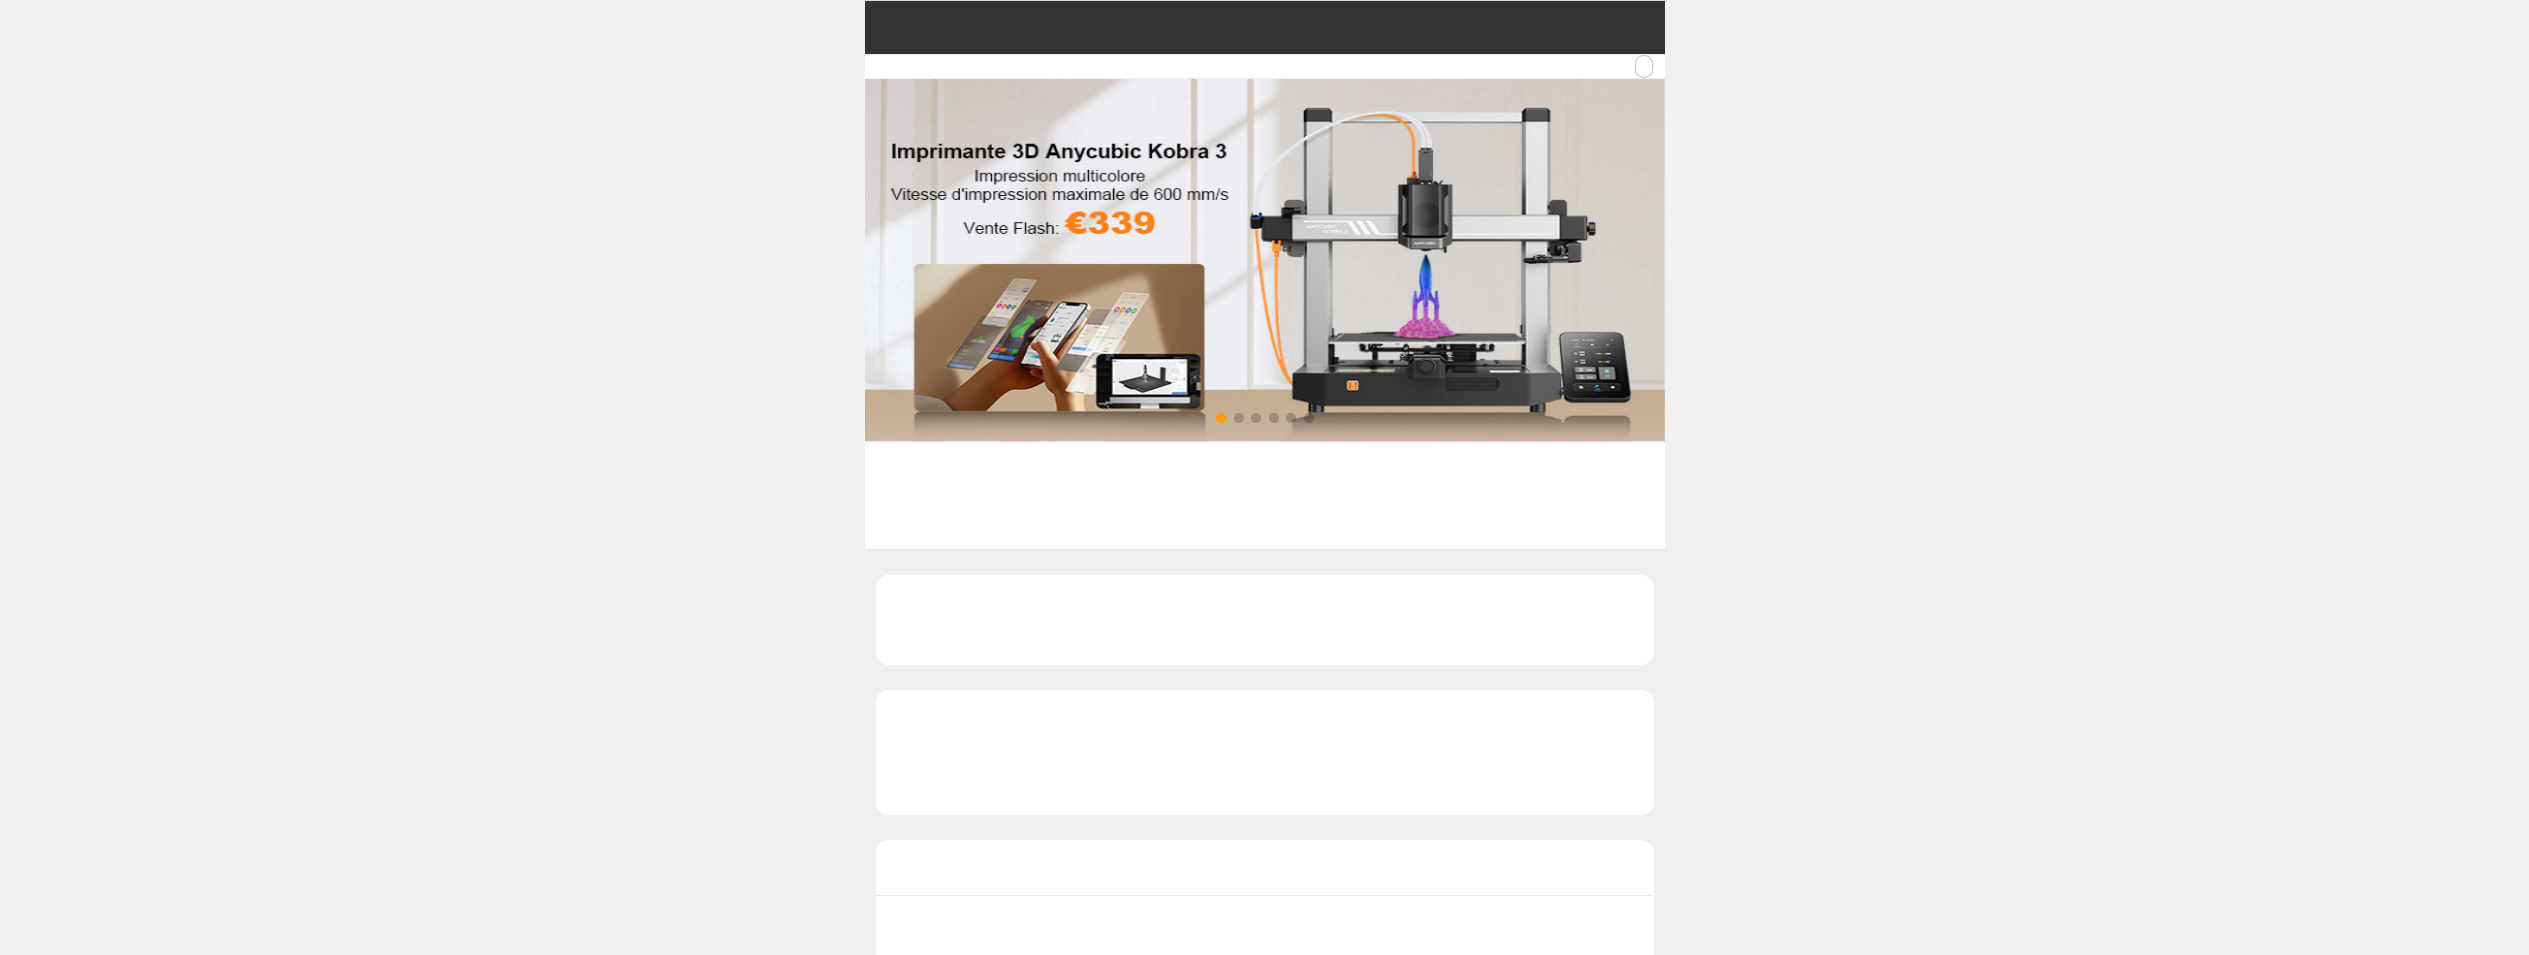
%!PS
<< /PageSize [2529 955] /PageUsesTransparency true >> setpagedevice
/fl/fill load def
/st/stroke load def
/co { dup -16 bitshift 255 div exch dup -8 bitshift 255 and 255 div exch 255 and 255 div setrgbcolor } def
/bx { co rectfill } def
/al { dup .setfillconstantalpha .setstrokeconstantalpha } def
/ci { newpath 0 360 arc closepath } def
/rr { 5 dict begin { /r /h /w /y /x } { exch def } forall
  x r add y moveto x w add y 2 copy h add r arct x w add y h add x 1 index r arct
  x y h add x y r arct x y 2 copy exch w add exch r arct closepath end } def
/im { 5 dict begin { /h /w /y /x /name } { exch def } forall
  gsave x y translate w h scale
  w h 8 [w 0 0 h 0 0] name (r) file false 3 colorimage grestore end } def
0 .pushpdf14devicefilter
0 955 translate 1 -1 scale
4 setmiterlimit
0 0 2529 955 16#F0F0F0 bx
865 1 800 53 16#333333 bx
865 54 800 1 16#EBEBEB bx
865 0 800 1 16#DDDDDD bx
865 55 800 23 16#FFFFFF bx
16#CCCCCC co
1635.5 55.5 17 22 8.5 rr st
(media/1.raw) 865 79 800 362 im
0.9 al
16#FF9900 co
1221 418 5 ci fl
0.2 al
16#000000 co
1239 418 5 ci fl
1256 418 5 ci fl
1274 418 5 ci fl
1291 418 5 ci fl
1309 418 5 ci fl
1 al
865 441 800 1 16#E5E5E5 bx
865 549 800 1 16#E5E5E5 bx
865 443 800 106 16#FFFFFF bx
876 575 778 90 13 rr fl
876 690 778 125 13 rr fl
876 840 778 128 13 rr fl
876 895 778 1 16#EBEBEB bx
.poppdf14devicefilter showpage
